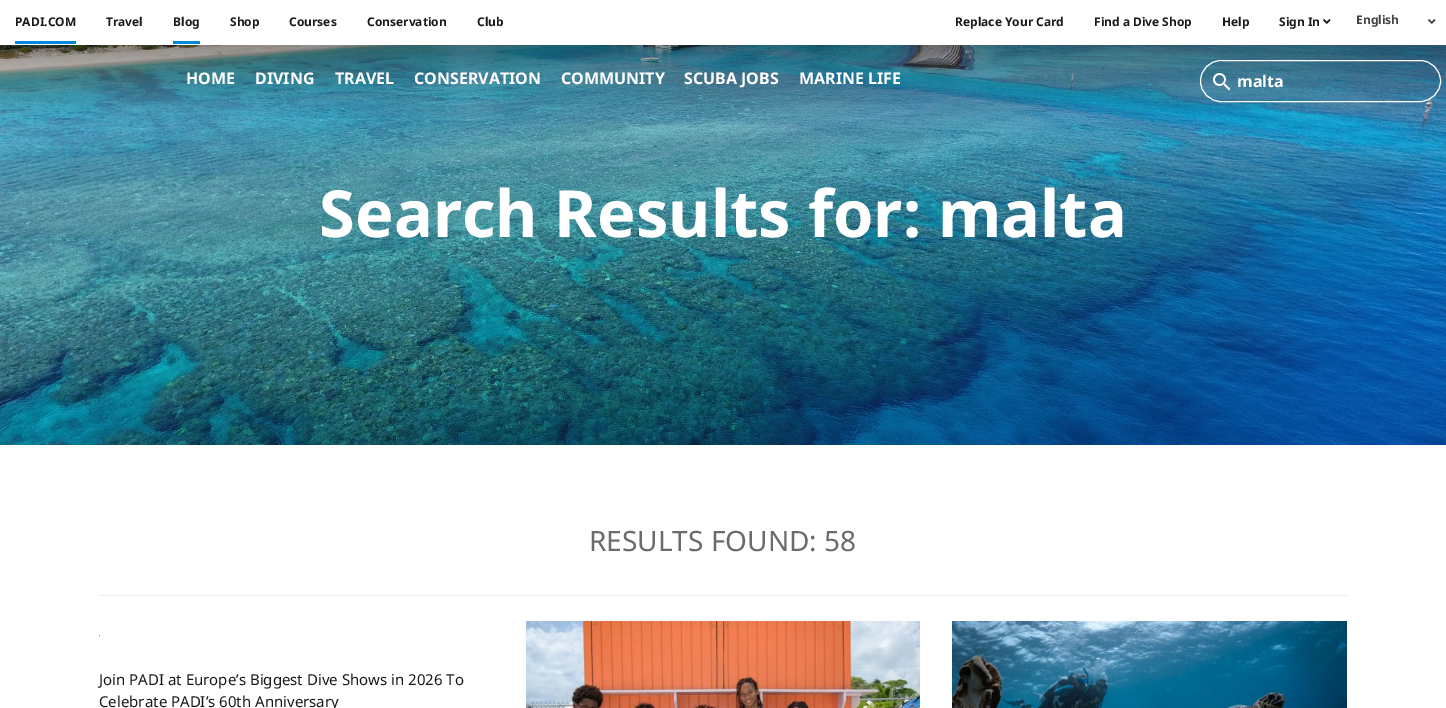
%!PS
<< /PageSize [1446 708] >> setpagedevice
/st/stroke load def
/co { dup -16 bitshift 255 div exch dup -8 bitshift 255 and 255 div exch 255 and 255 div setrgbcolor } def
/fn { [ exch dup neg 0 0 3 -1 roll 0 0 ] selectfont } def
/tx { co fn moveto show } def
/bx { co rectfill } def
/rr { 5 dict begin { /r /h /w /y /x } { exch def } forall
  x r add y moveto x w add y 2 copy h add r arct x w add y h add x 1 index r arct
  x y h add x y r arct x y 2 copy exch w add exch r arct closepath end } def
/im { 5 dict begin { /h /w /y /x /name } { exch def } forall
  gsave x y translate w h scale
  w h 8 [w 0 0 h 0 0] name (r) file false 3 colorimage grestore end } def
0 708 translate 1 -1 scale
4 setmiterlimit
0 0 1446 708 16#FFFFFF bx
15 41 61 3 16#0088DC bx
173 41 27 3 16#0088DC bx
(media/1.raw) 1323 19 8 5 im
(media/2.raw) 1428 19 8 5 im
(media/4.raw) 0 45 1446 400 im
(media/3.raw) 1213 73 18 18 im
16#FFFFFF co
1200.5 60.5 240 41 20.5 rr st
98 595 1250 1 16#EEEEEE bx
99 635 1 1 16#6D8180 bx
(media/5.raw) 526 621 394 87 im
(media/6.raw) 952 621 395 87 im
(PADI.COM) 15 26 /NotoSans-Bold 12 16#181B1C tx
(Travel) 106 26 /NotoSans-Bold 12 16#181B1C tx
(Blog) 173 26 /NotoSans-Bold 12 16#181B1C tx
(Shop) 230 26 /NotoSans-Bold 12 16#181B1C tx
(Courses) 289 26 /NotoSans-Bold 12 16#181B1C tx
(Conservation) 367 26 /NotoSans-Bold 12 16#181B1C tx
(Club) 477 26 /NotoSans-Bold 12 16#181B1C tx
(Replace Your Card) 955 26 /NotoSans-Bold 12 16#181B1C tx
(Find a Dive Shop) 1094 26 /NotoSans-Bold 12 16#181B1C tx
(Help) 1222 26 /NotoSans-Bold 12 16#181B1C tx
(Sign In) 1279 26 /NotoSans-Bold 12 16#181B1C tx
(English) 1356 24 /NotoSans-Bold 12 16#444444 tx
(HOME) 186 84 /NotoSans-Bold 16 16#FFFFFF tx
(DIVING) 255 84 /NotoSans-Bold 16 16#FFFFFF tx
(TRAVEL) 335 84 /NotoSans-Bold 16 16#FFFFFF tx
(CONSERVATION) 414 84 /NotoSans-Bold 16 16#FFFFFF tx
(COMMUNITY) 561 84 /NotoSans-Bold 16 16#FFFFFF tx
(SCUBA JOBS) 684 84 /NotoSans-Bold 16 16#FFFFFF tx
(MARINE LIFE) 799 84 /NotoSans-Bold 16 16#FFFFFF tx
(malta) 1237 87 /NotoSans-Bold 16 16#FFFFFF tx
(Search Results for: malta) 319 237 /NotoSans-Bold 65 16#FFFFFF tx
(RESULTS FOUND: 58) 589 551 /NotoSans-Regular 28 16#696C6E tx
(Join PADI at Europe’s Biggest Dive Shows in 2026 To) 99 685 /NotoSans-Regular 15 16#181B1C tx
(Celebrate PADI’s 60th Anniversary) 99 707 /NotoSans-Regular 15 16#181B1C tx
showpage
